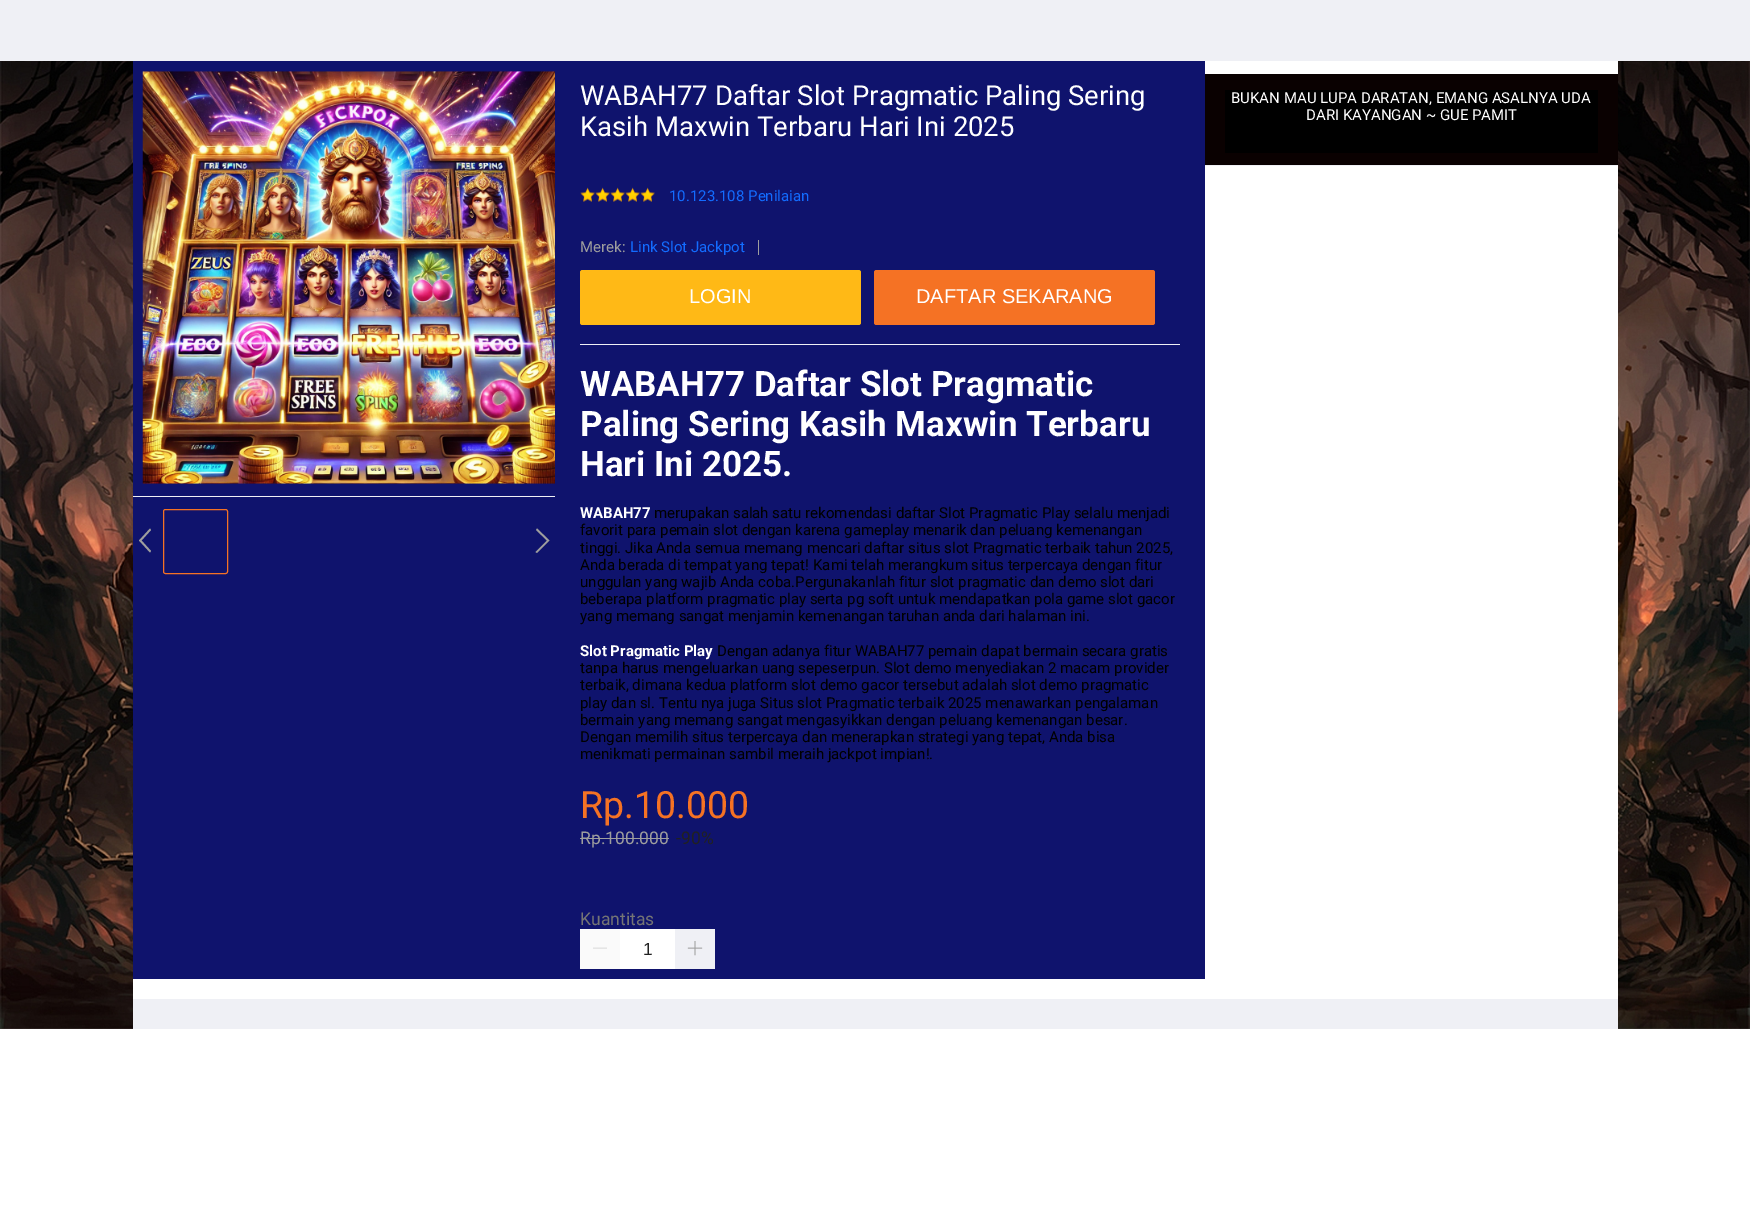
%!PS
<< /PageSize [1750 1221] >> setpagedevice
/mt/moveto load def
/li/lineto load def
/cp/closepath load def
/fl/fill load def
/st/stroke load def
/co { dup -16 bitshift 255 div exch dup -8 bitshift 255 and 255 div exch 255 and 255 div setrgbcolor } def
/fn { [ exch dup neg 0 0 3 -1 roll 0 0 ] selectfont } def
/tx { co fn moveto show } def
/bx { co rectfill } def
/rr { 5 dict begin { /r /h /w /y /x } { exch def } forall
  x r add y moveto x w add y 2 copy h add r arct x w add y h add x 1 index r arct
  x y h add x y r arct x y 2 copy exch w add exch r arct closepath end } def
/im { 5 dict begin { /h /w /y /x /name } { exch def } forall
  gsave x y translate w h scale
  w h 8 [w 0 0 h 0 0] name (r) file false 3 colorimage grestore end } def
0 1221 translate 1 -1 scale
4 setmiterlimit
0 0 1750 1221 16#FFFFFF bx
(media/1.raw) 0 61 1750 968 im
0 0 1750 61 16#EFF0F5 bx
(media/2.raw) 0 61 1750 968 im
133 999 1485 30 16#EFF0F5 bx
133 61 1485 938 16#FFFFFF bx
133 61 1072 918 16#0F136D bx
133 496 422 1 16#EFF0F5 bx
(media/3.raw) 142 71 413 413 im
16#9E9E9E co
151 551 mt 141.5 540.5 li 151 530 li 150 528.5 li 139 540.5 li 150 552.5 li cp fl
16#F57224 co
163.5 509.5 64 64 2 rr st
16#9E9E9E co
537 553 mt 535.5 552 li 547 540.5 li 536 530 li 537 528.5 li 549.5 540.5 li cp fl
(media/4.raw) 580 187 15 15 im
(media/4.raw) 595 187 15 15 im
(media/4.raw) 610 187 15 15 im
(media/4.raw) 625 187 15 15 im
(media/4.raw) 640 187 15 15 im
580 344 600 1 16#EFF0F5 bx
758 240 1 15 16#9E9E9E bx
16#FFB916 co
580 270 281 55 2.5 rr fl
16#F57224 co
874 270 281 55 2.5 rr fl
580 838 89 1 16#9E9E9E bx
580 929 40 40 16#FAFAFA bx
(media/5.raw) 593 947 14 2 im
675 929 40 40 16#EFF0F5 bx
(media/6.raw) 687 941 16 15 im
620 929 55 40 16#FFFFFF bx
1205 74 413 91 16#0A0101 bx
1225 90 373 63 16#000000 bx
1205 165 413 1 16#EFF0F5 bx
(WABAH77 Daftar Slot Pragmatic Paling Sering) 580 105 /Roboto-Regular 27.5 16#FFFFFF tx
(Kasih Maxwin Terbaru Hari Ini 2025) 580 136 /Roboto-Regular 27.5 16#FFFFFF tx
(10.123.108 Penilaian) 669 201 /Roboto-Regular 15 16#136CFF tx
(Merek:) 580 252 /Roboto-Regular 15 16#9E9E9E tx
(Link Slot Jackpot) 630 252 /Roboto-Regular 15 16#136CFF tx
(LOGIN) 689 303 /LiberationSans-Regular 20 16#FFFFFF tx
(DAFTAR SEKARANG) 916 303 /LiberationSans-Regular 20 16#FFFFFF tx
(WABAH77 Daftar Slot Pragmatic) 580 396 /Roboto-Bold 35 16#FFFFFF tx
(Paling Sering Kasih Maxwin Terbaru) 580 436 /Roboto-Bold 35 16#FFFFFF tx
(Hari Ini 2025.) 580 476 /Roboto-Bold 35 16#FFFFFF tx
(WABAH77) 580 518 /Roboto-Bold 15 16#FFFFFF tx
(merupakan salah satu rekomendasi daftar Slot Pragmatic Play selalu menjadi) 654 518 /Roboto-Regular 15 16#000000 tx
(favorit para pemain slot dengan karena gameplay menarik dan peluang kemenangan) 580 535 /Roboto-Regular 15 16#000000 tx
(tinggi. Jika Anda semua memang mencari daftar situs slot Pragmatic terbaik tahun 2025,) 580 553 /Roboto-Regular 15 16#000000 tx
(Anda berada di tempat yang tepat! Kami telah merangkum situs terpercaya dengan fitur) 580 570 /Roboto-Regular 15 16#000000 tx
(unggulan yang wajib Anda coba.Pergunakanlah fitur slot pragmatic dan demo slot dari) 580 587 /Roboto-Regular 15 16#000000 tx
(beberapa platform pragmatic play serta pg soft untuk mendapatkan pola game slot gacor) 580 604 /Roboto-Regular 15 16#000000 tx
(yang memang sangat menjamin kemenangan taruhan anda dari halaman ini.) 580 621 /Roboto-Regular 15 16#000000 tx
(Slot Pragmatic Play) 580 656 /Roboto-Bold 15 16#FFFFFF tx
(Dengan adanya fitur WABAH77 pemain dapat bermain secara gratis) 717 656 /Roboto-Regular 15 16#000000 tx
(tanpa harus mengeluarkan uang sepeserpun. Slot demo menyediakan 2 macam provider) 580 673 /Roboto-Regular 15 16#000000 tx
(terbaik, dimana kedua platform slot demo gacor tersebut adalah slot demo pragmatic) 580 690 /Roboto-Regular 15 16#000000 tx
(play dan sl. Tentu nya juga Situs slot Pragmatic terbaik 2025 menawarkan pengalaman) 580 708 /Roboto-Regular 15 16#000000 tx
(bermain yang memang sangat mengasyikkan dengan peluang kemenangan besar.) 580 725 /Roboto-Regular 15 16#000000 tx
(Dengan memilih situs terpercaya dan menerapkan strategi yang tepat, Anda bisa) 580 742 /Roboto-Regular 15 16#000000 tx
(menikmati permainan sambil meraih jackpot impian!.) 580 759 /Roboto-Regular 15 16#000000 tx
(Rp.10.000) 580 818 /Roboto-Regular 37.5 16#F57224 tx
(Rp.100.000) 580 844 /Roboto-Regular 17.5 16#9E9E9E tx
(-90%) 676 844 /Roboto-Regular 17.5 16#212121 tx
(Kuantitas) 580 925 /Roboto-Regular 17.5 16#757575 tx
(1) 643 955 /LiberationSans-Regular 17.5 16#212121 tx
(BUKAN MAU LUPA DARATAN, EMANG ASALNYA UDA) 1231 103 /Roboto-Regular 15 16#FFFFFF tx
(DARI KAYANGAN ~ GUE PAMIT) 1306 120 /Roboto-Regular 15 16#FFFFFF tx
showpage
